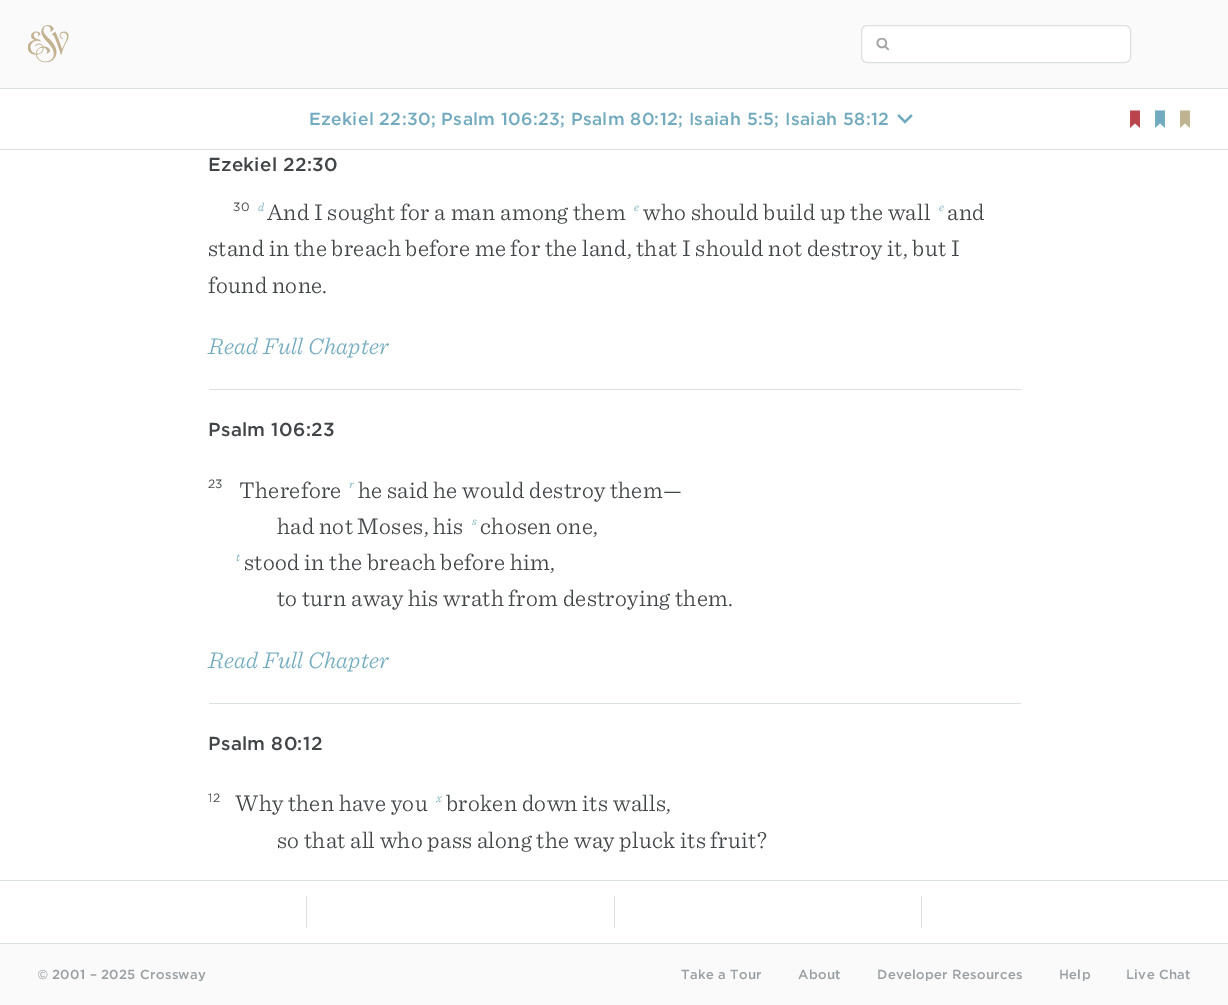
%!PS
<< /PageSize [1228 1005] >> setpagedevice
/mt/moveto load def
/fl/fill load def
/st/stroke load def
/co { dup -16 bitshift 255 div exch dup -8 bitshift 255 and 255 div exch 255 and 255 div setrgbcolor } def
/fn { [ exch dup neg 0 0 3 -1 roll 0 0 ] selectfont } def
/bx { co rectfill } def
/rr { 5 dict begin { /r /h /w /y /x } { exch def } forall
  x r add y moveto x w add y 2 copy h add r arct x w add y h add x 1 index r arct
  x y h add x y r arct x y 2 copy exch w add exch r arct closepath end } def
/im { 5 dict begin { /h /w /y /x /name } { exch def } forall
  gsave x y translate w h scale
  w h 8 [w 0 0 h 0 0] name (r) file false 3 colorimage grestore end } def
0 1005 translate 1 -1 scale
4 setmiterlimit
0 0 1228 1005 16#FAFAFA bx
(media/1.raw) 28 25 41 38 im
16#FFFFFF co
861 25 270 38 6 rr fl
(media/2.raw) 876 38 13 13 im
16#DCE0E3 co
861.5 25.5 269 37 5.5 rr st
0 89 1228 854 16#FFFFFF bx
0 88 1228 1 16#DCE0E3 bx
0 149 1228 1 16#DCE0E3 bx
(media/3.raw) 897 114 16 10 im
(media/4.raw) 1130 110 10 18 im
(media/5.raw) 1155 110 10 18 im
(media/6.raw) 1180 110 10 18 im
209 389 812 1 16#DCE0E3 bx
209 703 812 1 16#DCE0E3 bx
0 880 1228 1 16#DCE0E3 bx
306 896 1 32 16#DCE0E3 bx
614 896 1 32 16#DCE0E3 bx
921 896 1 32 16#DCE0E3 bx
0 943 1228 1 16#DCE0E3 bx
/Gotham-Medium 17.5 fn
16#72ABBF co
309 125 mt .3 0 (Ezekiel 22:30; Psalm 106:23; Psalm 80:12; Isaiah 5:5; Isaiah 58:12) ashow
/Gotham-Medium 18.75 fn
16#424547 co
208 171 mt .3 0 (Ezekiel 22:30) ashow
/Gotham-Regular 12 fn
233 211 mt .3 0 (30) ashow
/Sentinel-LightItalic 12 fn
16#72ABBF co
258 211 mt .3 0 (d) ashow
/Sentinel-Light 23.75 fn
16#424547 co
267 220 mt .3 0 (And I sought for a man among them) ashow
/Sentinel-LightItalic 12 fn
16#72ABBF co
634 211 mt .3 0 (e) ashow
/Sentinel-Light 23.75 fn
16#424547 co
643 220 mt .3 0 (who should build up the wall) ashow
/Sentinel-LightItalic 12 fn
16#72ABBF co
939 211 mt .3 0 (e) ashow
/Sentinel-Light 23.75 fn
16#424547 co
947 220 mt .3 0 (and) ashow
208 256 mt .3 0 (stand in the breach before me for the land, that I should not destroy it, but I) ashow
208 293 mt .3 0 (found none.) ashow
/Sentinel-LightItalic 23.75 fn
16#72ABBF co
208 354 mt .3 0 (Read Full Chapter) ashow
/Gotham-Medium 18.75 fn
16#424547 co
208 436 mt .3 0 (Psalm 106:23) ashow
/Gotham-Regular 12 fn
208 488 mt .3 0 (23) ashow
/Sentinel-Light 23.75 fn
239 498 mt .3 0 (Therefore) ashow
/Sentinel-LightItalic 12 fn
16#72ABBF co
349 488 mt .3 0 (r) ashow
/Sentinel-Light 23.75 fn
16#424547 co
358 498 mt .3 0 (he said he would destroy them—) ashow
277 534 mt .3 0 (had not Moses, his) ashow
/Sentinel-LightItalic 12 fn
16#72ABBF co
472 525 mt .3 0 (s) ashow
/Sentinel-Light 23.75 fn
16#424547 co
480 534 mt .3 0 (chosen one,) ashow
/Sentinel-LightItalic 12 fn
16#72ABBF co
236 561 mt .3 0 (t) ashow
/Sentinel-Light 23.75 fn
16#424547 co
244 570 mt .3 0 (stood in the breach before him,) ashow
277 606 mt .3 0 (to turn away his wrath from destroying them.) ashow
/Sentinel-LightItalic 23.75 fn
16#72ABBF co
208 668 mt .3 0 (Read Full Chapter) ashow
/Gotham-Medium 18.75 fn
16#424547 co
208 750 mt .3 0 (Psalm 80:12) ashow
/Gotham-Regular 12 fn
208 802 mt .3 0 (12) ashow
/Sentinel-Light 23.75 fn
235 811 mt .3 0 (Why then have you) ashow
/Sentinel-LightItalic 12 fn
16#72ABBF co
436 802 mt .3 0 (x) ashow
/Sentinel-Light 23.75 fn
16#424547 co
446 811 mt .3 0 (broken down its walls,) ashow
277 848 mt .3 0 (so that all who pass along the way pluck its fruit?) ashow
/LiberationSans-Regular 13.1 fn
16#9A9FA3 co
38 979 mt .3 0 (©) ashow
/Gotham-Medium 13.1 fn
52 979 mt .3 0 (2001 – 2025 Crossway) ashow
681 979 mt .3 0 (Take a Tour) ashow
798 979 mt .3 0 (About) ashow
877 979 mt .3 0 (Developer Resources) ashow
1059 979 mt .3 0 (Help) ashow
1126 979 mt .3 0 (Live Chat) ashow
showpage
